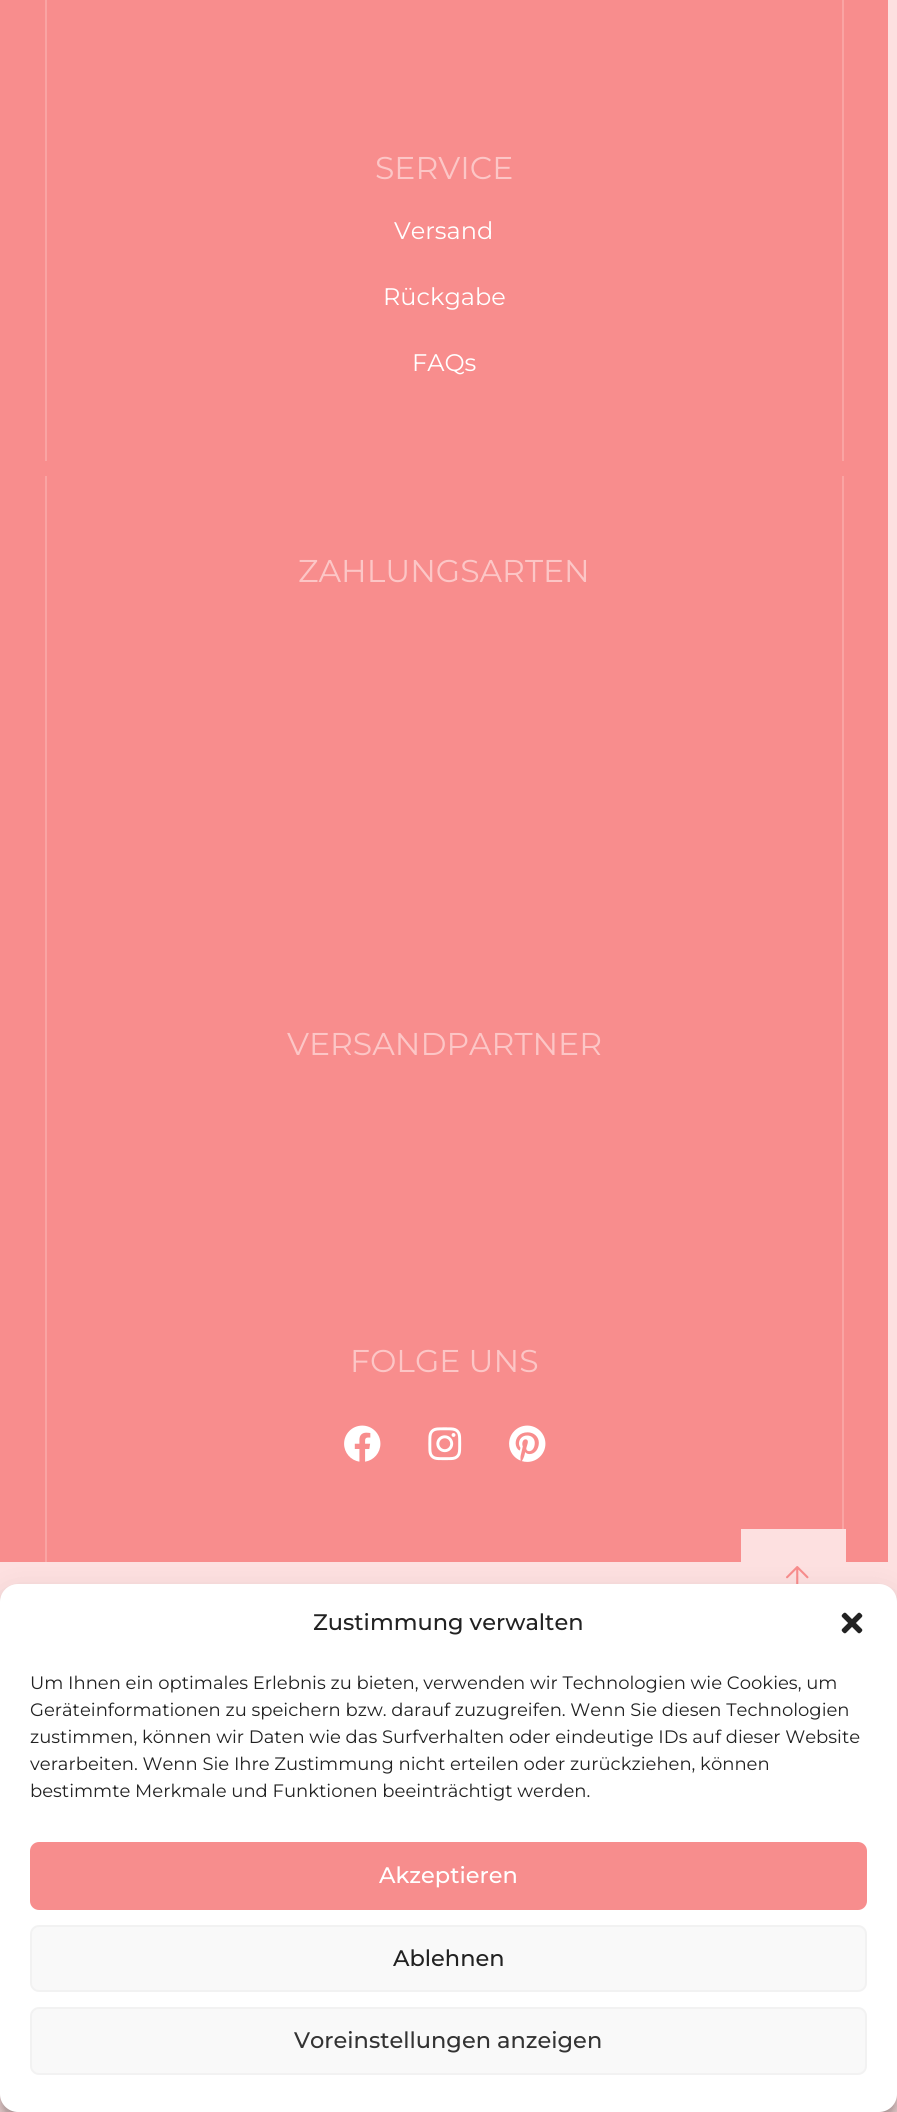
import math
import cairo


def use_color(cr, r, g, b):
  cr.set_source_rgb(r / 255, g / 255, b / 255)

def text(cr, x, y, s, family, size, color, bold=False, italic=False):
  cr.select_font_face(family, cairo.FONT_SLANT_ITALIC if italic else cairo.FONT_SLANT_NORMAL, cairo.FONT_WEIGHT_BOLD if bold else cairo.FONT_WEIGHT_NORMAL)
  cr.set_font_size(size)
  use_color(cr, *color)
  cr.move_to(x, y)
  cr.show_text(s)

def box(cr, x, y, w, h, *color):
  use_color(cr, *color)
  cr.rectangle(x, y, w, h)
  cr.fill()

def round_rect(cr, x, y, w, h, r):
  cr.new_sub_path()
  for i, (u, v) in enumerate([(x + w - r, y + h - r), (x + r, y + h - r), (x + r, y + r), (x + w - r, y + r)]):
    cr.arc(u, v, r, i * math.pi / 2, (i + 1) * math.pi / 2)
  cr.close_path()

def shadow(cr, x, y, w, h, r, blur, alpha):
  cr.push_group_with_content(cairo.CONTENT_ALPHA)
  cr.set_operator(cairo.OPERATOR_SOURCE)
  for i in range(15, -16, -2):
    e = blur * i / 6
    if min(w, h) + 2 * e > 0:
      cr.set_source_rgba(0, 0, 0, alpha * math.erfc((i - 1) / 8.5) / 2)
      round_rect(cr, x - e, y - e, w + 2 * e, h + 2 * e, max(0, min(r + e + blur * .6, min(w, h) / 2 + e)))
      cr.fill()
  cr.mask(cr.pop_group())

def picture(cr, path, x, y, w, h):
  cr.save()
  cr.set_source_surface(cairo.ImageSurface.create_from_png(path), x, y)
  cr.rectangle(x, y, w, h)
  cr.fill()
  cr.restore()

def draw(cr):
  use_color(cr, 253, 224, 224)
  cr.paint()
  box(cr, 0, 0, 888, 1562, 248, 141, 141)
  box(cr, 842, 0, 2, 461, 250, 164, 163)
  box(cr, 45, 0, 2, 461, 250, 164, 163)
  box(cr, 842, 476, 2, 1053, 250, 164, 163)
  box(cr, 45, 476, 2, 1086, 250, 164, 163)
  picture(cr, "img_01.png", 344, 1425, 37, 37)
  picture(cr, "img_02.png", 428, 1427, 34, 34)
  picture(cr, "img_03.png", 509, 1425, 37, 37)
  box(cr, 741, 1529, 105, 33, 253, 224, 224)
  picture(cr, "img_04.png", 786, 1566, 23, 18)
  use_color(cr, 0, 0, 0)
  shadow(cr, 0, 1593, 897, 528, 18, 4.5, 0.23)
  shadow(cr, 0, 1599, 897, 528, 18, 15, 0.19)
  use_color(cr, 255, 255, 255)
  round_rect(cr, 0, 1584, 897, 528, 18)
  cr.fill()
  picture(cr, "img_05.png", 841, 1612, 22, 22)
  use_color(cr, 247, 141, 141)
  round_rect(cr, 31, 1843, 835, 66, 8)
  cr.fill_preserve()
  cr.stroke()
  use_color(cr, 249, 249, 249)
  round_rect(cr, 31, 1926, 835, 65, 8)
  cr.fill_preserve()
  use_color(cr, 242, 242, 242)
  cr.stroke()
  use_color(cr, 249, 249, 249)
  round_rect(cr, 31, 2008, 835, 66, 8)
  cr.fill_preserve()
  use_color(cr, 242, 242, 242)
  cr.stroke()
  text(cr, 375, 179, "SERVICE", "Montserrat Thin", 31.5, (252, 198, 198))
  text(cr, 394, 239, "Versand", "Montserrat Thin", 24, (255, 255, 255))
  text(cr, 383, 305, "Rückgabe", "Montserrat Thin", 24, (255, 255, 255))
  text(cr, 412, 371, "FAQs", "Montserrat Thin", 24, (255, 255, 255))
  text(cr, 298, 582, "ZAHLUNGSARTEN", "Montserrat Thin", 31.5, (252, 198, 198))
  text(cr, 287, 1055, "VERSANDPARTNER", "Montserrat Thin", 31.5, (252, 198, 198))
  text(cr, 350, 1372, "FOLGE UNS", "Montserrat Thin", 31.5, (252, 198, 198))
  text(cr, 313, 1630, "Zustimmung verwalten", "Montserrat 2 Thin", 22.5, (34, 34, 34))
  text(cr, 30, 1689, "Um Ihnen ein optimales Erlebnis zu bieten, verwenden wir Technologien wie Cookies, um", "Montserrat Thin", 18, (34, 34, 34))
  text(cr, 30, 1716, "Geräteinformationen zu speichern bzw. darauf zuzugreifen. Wenn Sie diesen Technologien", "Montserrat Thin", 18, (34, 34, 34))
  text(cr, 30, 1743, "zustimmen, können wir Daten wie das Surfverhalten oder eindeutige IDs auf dieser Website", "Montserrat Thin", 18, (34, 34, 34))
  text(cr, 30, 1770, "verarbeiten. Wenn Sie Ihre Zustimmung nicht erteilen oder zurückziehen, können", "Montserrat Thin", 18, (34, 34, 34))
  text(cr, 30, 1797, "bestimmte Merkmale und Funktionen beeinträchtigt werden.", "Montserrat Thin", 18, (34, 34, 34))
  text(cr, 379, 1883, "Akzeptieren", "Montserrat 2 Thin", 22.5, (255, 255, 255))
  text(cr, 393, 1966, "Ablehnen", "Montserrat 2 Thin", 22.5, (34, 34, 34))
  text(cr, 294, 2048, "Voreinstellungen anzeigen", "Montserrat 2 Thin", 22.5, (51, 51, 51))


surface = cairo.ImageSurface(cairo.FORMAT_RGB24, 897, 2112)
cr = cairo.Context(surface)
options = cairo.FontOptions()
options.set_hint_metrics(cairo.HINT_METRICS_OFF)
options.set_hint_style(cairo.HINT_STYLE_NONE)
cr.set_font_options(options)
cr.set_miter_limit(4)
draw(cr)
surface.write_to_png("out.png")
